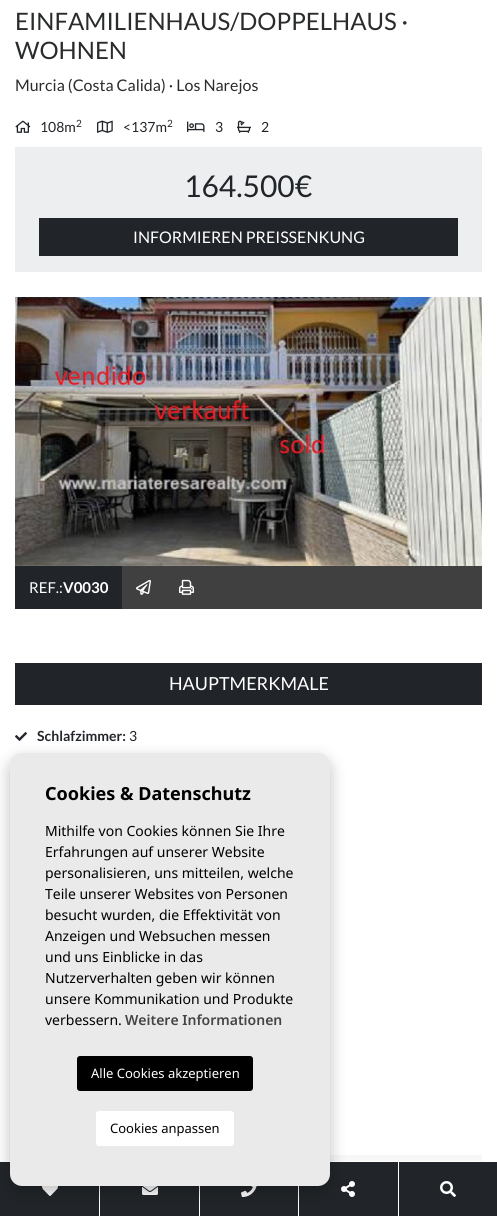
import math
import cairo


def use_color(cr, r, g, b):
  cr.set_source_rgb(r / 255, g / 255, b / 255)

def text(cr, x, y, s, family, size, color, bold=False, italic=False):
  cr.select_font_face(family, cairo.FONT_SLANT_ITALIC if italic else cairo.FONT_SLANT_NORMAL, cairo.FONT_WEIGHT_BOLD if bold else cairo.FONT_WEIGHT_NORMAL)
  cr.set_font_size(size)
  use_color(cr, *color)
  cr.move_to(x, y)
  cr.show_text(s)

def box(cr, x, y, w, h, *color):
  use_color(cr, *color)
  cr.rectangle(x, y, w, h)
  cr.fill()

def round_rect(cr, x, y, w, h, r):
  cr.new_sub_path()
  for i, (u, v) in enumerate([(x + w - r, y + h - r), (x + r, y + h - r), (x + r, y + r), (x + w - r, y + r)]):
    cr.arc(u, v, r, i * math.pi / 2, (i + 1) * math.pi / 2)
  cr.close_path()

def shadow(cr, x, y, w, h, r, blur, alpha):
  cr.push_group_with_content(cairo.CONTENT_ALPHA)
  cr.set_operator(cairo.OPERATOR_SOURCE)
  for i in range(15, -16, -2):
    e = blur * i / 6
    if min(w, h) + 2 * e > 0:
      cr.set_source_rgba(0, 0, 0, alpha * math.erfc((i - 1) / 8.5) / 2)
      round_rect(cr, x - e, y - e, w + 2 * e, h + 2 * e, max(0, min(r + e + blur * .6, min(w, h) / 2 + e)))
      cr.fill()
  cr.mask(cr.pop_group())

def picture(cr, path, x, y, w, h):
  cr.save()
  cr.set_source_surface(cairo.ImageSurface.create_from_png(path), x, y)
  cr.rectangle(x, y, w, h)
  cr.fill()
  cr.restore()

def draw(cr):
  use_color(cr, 255, 255, 255)
  cr.paint()
  picture(cr, "img_01.png", 15, 120, 16, 13)
  picture(cr, "img_02.png", 97, 120, 16, 13)
  picture(cr, "img_03.png", 187, 121, 18, 11)
  picture(cr, "img_04.png", 237, 120, 14, 13)
  box(cr, 15, 147, 467, 125, 236, 238, 239)
  box(cr, 39, 218, 419, 38, 33, 37, 41)
  picture(cr, "img_05.png", 15, 297, 467, 269)
  box(cr, 122, 566, 360, 43, 64, 64, 65)
  box(cr, 15, 566, 107, 43, 33, 37, 41)
  picture(cr, "img_06.png", 136, 579, 15, 16)
  picture(cr, "img_07.png", 179, 579, 15, 16)
  box(cr, 15, 663, 467, 42, 33, 37, 41)
  picture(cr, "img_08.png", 15, 732, 12, 9)
  box(cr, 330, 1155, 152, 6, 247, 247, 247)
  box(cr, 0, 1162, 497, 54, 33, 37, 41)
  picture(cr, "img_09.png", 42, 1186, 16, 10)
  box(cr, 99, 1186, 1, 30, 255, 255, 255)
  picture(cr, "img_10.png", 142, 1186, 16, 9)
  box(cr, 199, 1186, 1, 30, 255, 255, 255)
  picture(cr, "img_11.png", 241, 1186, 16, 11)
  box(cr, 298, 1186, 1, 30, 255, 255, 255)
  picture(cr, "img_12.png", 341, 1181, 14, 16)
  use_color(cr, 0, 0, 0)
  shadow(cr, 10, 759, 320, 433, 12, 8, 0.25)
  use_color(cr, 234, 234, 234)
  round_rect(cr, 10, 753, 320, 433, 12)
  cr.fill()
  use_color(cr, 0, 0, 0)
  round_rect(cr, 77, 1056, 176, 35, 3)
  cr.fill()
  use_color(cr, 255, 255, 255)
  round_rect(cr, 96, 1111, 138, 35, 3)
  cr.fill()
  box(cr, 398, 1162, 1, 54, 255, 255, 255)
  picture(cr, "img_13.png", 440, 1181, 16, 16)
  text(cr, 15, 30, "EINFAMILIENHAUS/DOPPELHAUS ·", "Lato", 24, (41, 43, 44))
  text(cr, 15, 59, "WOHNEN", "Lato", 24, (41, 43, 44))
  text(cr, 15, 91, "Murcia (Costa Calida) · Los Narejos", "Lato", 16, (41, 43, 44))
  text(cr, 40, 132, "108m", "Lato", 14, (33, 37, 41))
  text(cr, 76, 127, "2", "Lato", 10, (33, 37, 41))
  text(cr, 123, 132, "<137m", "Lato", 14, (33, 37, 41))
  text(cr, 167, 127, "2", "Lato", 10, (33, 37, 41))
  text(cr, 215, 132, "3", "Lato", 14, (33, 37, 41))
  text(cr, 261, 132, "2", "Lato", 14, (33, 37, 41))
  text(cr, 184, 197, "164.500€", "Lato", 30, (33, 37, 41))
  text(cr, 133, 243, "INFORMIEREN PREISSENKUNG", "Lato", 16, (255, 255, 255))
  text(cr, 29, 593, "REF.:", "Lato", 15, (255, 255, 255))
  text(cr, 63, 593, "V0030", "Lato", 15, (255, 255, 255), bold=True)
  text(cr, 169, 690, "HAUPTMERKMALE", "Lato", 18, (255, 255, 255))
  text(cr, 37, 741, "Schlafzimmer:", "Lato", 14, (33, 37, 41), bold=True)
  text(cr, 129, 741, "3", "Lato", 14, (33, 37, 41))
  text(cr, 45, 800, "Cookies & Datenschutz", "Noto Sans", 18, (0, 0, 0), bold=True)
  text(cr, 45, 836, "Mithilfe von Cookies können Sie Ihre", "Noto Sans", 14, (0, 0, 0))
  text(cr, 45, 857, "Erfahrungen auf unserer Website", "Noto Sans", 14, (0, 0, 0))
  text(cr, 45, 878, "personalisieren, uns mitteilen, welche", "Noto Sans", 14, (0, 0, 0))
  text(cr, 45, 899, "Teile unserer Websites von Personen", "Noto Sans", 14, (0, 0, 0))
  text(cr, 45, 920, "besucht wurden, die Effektivität von", "Noto Sans", 14, (0, 0, 0))
  text(cr, 45, 941, "Anzeigen und Websuchen messen", "Noto Sans", 14, (0, 0, 0))
  text(cr, 45, 962, "und uns Einblicke in das", "Noto Sans", 14, (0, 0, 0))
  text(cr, 45, 983, "Nutzerverhalten geben wir können", "Noto Sans", 14, (0, 0, 0))
  text(cr, 45, 1004, "unsere Kommunikation und Produkte", "Noto Sans", 14, (0, 0, 0))
  text(cr, 45, 1025, "verbessern.", "Noto Sans", 14, (0, 0, 0))
  text(cr, 125, 1025, "Weitere Informationen", "Noto Sans SemiBold", 14, (68, 68, 68))
  text(cr, 91, 1078, "Alle Cookies akzeptieren", "Noto Sans", 13, (255, 255, 255))
  text(cr, 110, 1133, "Cookies anpassen", "Noto Sans", 13, (0, 0, 0))


surface = cairo.ImageSurface(cairo.FORMAT_RGB24, 497, 1216)
cr = cairo.Context(surface)
options = cairo.FontOptions()
options.set_hint_metrics(cairo.HINT_METRICS_OFF)
options.set_hint_style(cairo.HINT_STYLE_NONE)
cr.set_font_options(options)
cr.set_miter_limit(4)
draw(cr)
surface.write_to_png("out.png")
